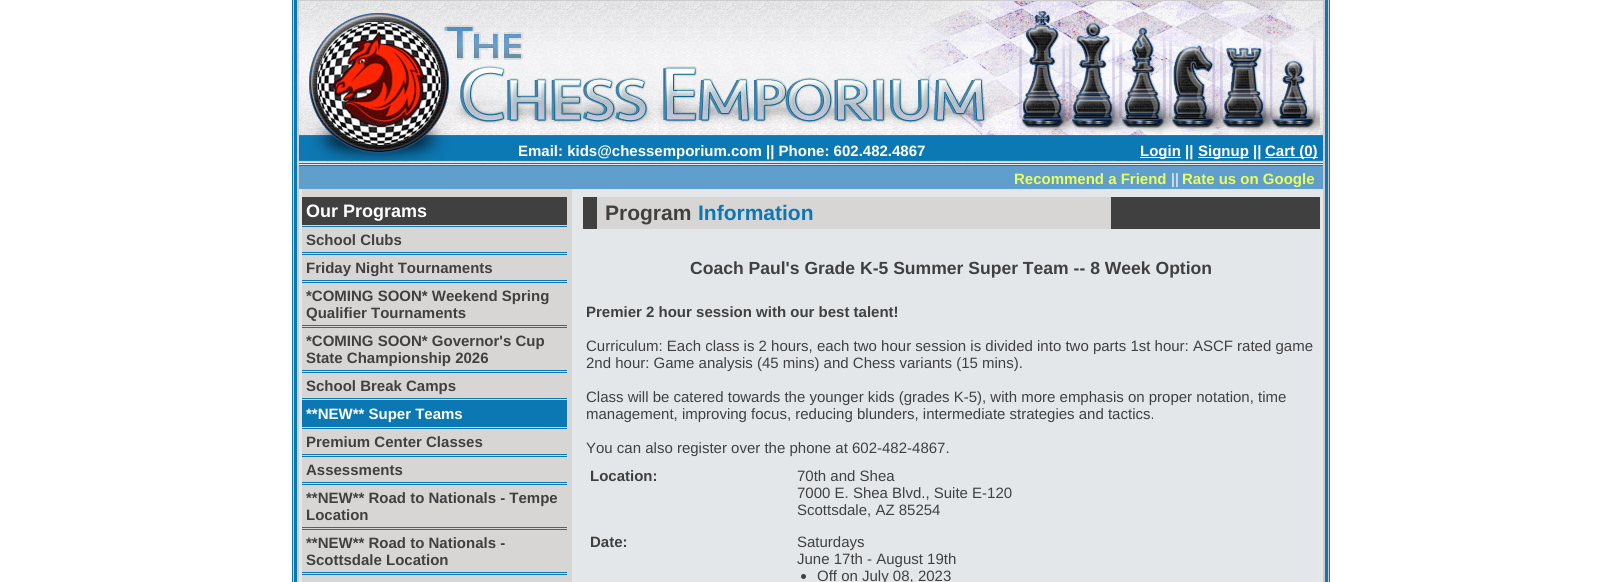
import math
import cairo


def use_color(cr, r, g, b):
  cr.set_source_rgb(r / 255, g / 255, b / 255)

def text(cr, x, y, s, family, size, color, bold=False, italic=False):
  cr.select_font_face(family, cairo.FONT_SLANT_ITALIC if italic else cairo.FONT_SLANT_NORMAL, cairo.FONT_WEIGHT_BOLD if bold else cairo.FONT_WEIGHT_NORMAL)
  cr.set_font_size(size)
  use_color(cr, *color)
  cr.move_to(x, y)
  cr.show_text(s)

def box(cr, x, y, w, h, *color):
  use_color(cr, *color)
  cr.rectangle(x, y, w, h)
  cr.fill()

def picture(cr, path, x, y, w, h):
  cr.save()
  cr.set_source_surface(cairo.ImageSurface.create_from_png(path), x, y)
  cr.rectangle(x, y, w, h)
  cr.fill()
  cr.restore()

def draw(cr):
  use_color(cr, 255, 255, 255)
  cr.paint()
  picture(cr, "img_01.png", 292, 0, 1038, 166)
  picture(cr, "img_02.png", 1017, 10, 303, 124)
  box(cr, 1140, 157, 41, 1, 255, 255, 255)
  box(cr, 1198, 157, 51, 1, 255, 255, 255)
  box(cr, 1265, 157, 53, 1, 255, 255, 255)
  picture(cr, "img_03.png", 292, 166, 1038, 416)
  box(cr, 299, 166, 1024, 23, 96, 158, 205)
  box(cr, 302, 189, 270, 393, 216, 213, 213)
  box(cr, 302, 197, 265, 28, 65, 64, 65)
  box(cr, 302, 226, 265, 1, 12, 120, 179)
  box(cr, 302, 252, 265, 1, 12, 120, 179)
  box(cr, 302, 254, 265, 1, 12, 120, 179)
  box(cr, 302, 280, 265, 1, 12, 120, 179)
  box(cr, 302, 282, 265, 1, 12, 120, 179)
  box(cr, 302, 325, 265, 1, 12, 120, 179)
  box(cr, 302, 327, 265, 1, 12, 120, 179)
  box(cr, 302, 370, 265, 1, 12, 120, 179)
  box(cr, 302, 372, 265, 1, 12, 120, 179)
  box(cr, 302, 398, 265, 1, 12, 120, 179)
  box(cr, 302, 400, 265, 27, 12, 120, 179)
  box(cr, 302, 428, 265, 1, 12, 120, 179)
  box(cr, 302, 454, 265, 1, 12, 120, 179)
  box(cr, 302, 456, 265, 1, 12, 120, 179)
  box(cr, 302, 482, 265, 1, 12, 120, 179)
  box(cr, 302, 484, 265, 1, 12, 120, 179)
  box(cr, 302, 527, 265, 1, 12, 120, 179)
  box(cr, 302, 529, 265, 1, 12, 120, 179)
  box(cr, 302, 572, 265, 1, 12, 120, 179)
  box(cr, 302, 574, 265, 1, 12, 120, 179)
  box(cr, 583, 197, 737, 32, 65, 64, 65)
  box(cr, 597, 197, 514, 32, 216, 213, 213)
  use_color(cr, 65, 64, 65)
  cr.arc(803.5, 576.5, 2.5, 0, 2 * math.pi)
  cr.fill()
  text(cr, 518, 156, "Email: kids@chessemporium.com || Phone: 602.482.4867", "Liberation Sans", 15, (255, 255, 255), bold=True)
  text(cr, 1140, 156, "Login ||", "Liberation Sans", 15, (255, 255, 255), bold=True)
  text(cr, 1198, 156, "Signup ||", "Liberation Sans", 15, (255, 255, 255), bold=True)
  text(cr, 1265, 156, "Cart (0)", "Liberation Sans", 15, (255, 255, 255), bold=True)
  text(cr, 1014, 184, "Recommend a Friend", "Liberation Sans", 15, (235, 255, 86), bold=True)
  text(cr, 1171, 184, "||", "Liberation Sans", 15, (255, 255, 255))
  text(cr, 1182, 184, "Rate us on Google", "Liberation Sans", 15, (235, 255, 86), bold=True)
  text(cr, 306, 217, "Our Programs", "Liberation Sans", 18, (255, 255, 255), bold=True)
  text(cr, 306, 245, "School Clubs", "Liberation Sans", 15, (65, 64, 65), bold=True)
  text(cr, 306, 273, "Friday Night Tournaments", "Liberation Sans", 15, (65, 64, 65), bold=True)
  text(cr, 306, 301, "*COMING SOON* Weekend Spring", "Liberation Sans", 15, (65, 64, 65), bold=True)
  text(cr, 306, 318, "Qualifier Tournaments", "Liberation Sans", 15, (65, 64, 65), bold=True)
  text(cr, 306, 346, "*COMING SOON* Governor's Cup", "Liberation Sans", 15, (65, 64, 65), bold=True)
  text(cr, 306, 363, "State Championship 2026", "Liberation Sans", 15, (65, 64, 65), bold=True)
  text(cr, 306, 391, "School Break Camps", "Liberation Sans", 15, (65, 64, 65), bold=True)
  text(cr, 306, 419, "**NEW** Super Teams", "Liberation Sans", 15, (255, 255, 255), bold=True)
  text(cr, 306, 447, "Premium Center Classes", "Liberation Sans", 15, (65, 64, 65), bold=True)
  text(cr, 306, 475, "Assessments", "Liberation Sans", 15, (65, 64, 65), bold=True)
  text(cr, 306, 503, "**NEW** Road to Nationals - Tempe", "Liberation Sans", 15, (65, 64, 65), bold=True)
  text(cr, 306, 520, "Location", "Liberation Sans", 15, (65, 64, 65), bold=True)
  text(cr, 306, 548, "**NEW** Road to Nationals -", "Liberation Sans", 15, (65, 64, 65), bold=True)
  text(cr, 306, 565, "Scottsdale Location", "Liberation Sans", 15, (65, 64, 65), bold=True)
  text(cr, 605, 220, "Program", "Liberation Sans", 21, (65, 64, 65), bold=True)
  text(cr, 698, 220, "Information", "Liberation Sans", 21, (12, 120, 179), bold=True)
  text(cr, 690, 274, "Coach Paul's Grade K-5 Summer Super Team -- 8 Week Option", "Liberation Sans", 17.55, (65, 64, 65), bold=True)
  text(cr, 586, 317, "Premier 2 hour session with our best talent!", "Liberation Sans", 15, (65, 64, 65), bold=True)
  text(cr, 586, 351, "Curriculum: Each class is 2 hours, each two hour session is divided into two parts 1st hour: ASCF rated game", "Liberation Sans", 15, (65, 64, 65))
  text(cr, 586, 368, "2nd hour: Game analysis (45 mins) and Chess variants (15 mins).", "Liberation Sans", 15, (65, 64, 65))
  text(cr, 586, 402, "Class will be catered towards the younger kids (grades K-5), with more emphasis on proper notation, time", "Liberation Sans", 15, (65, 64, 65))
  text(cr, 586, 419, "management, improving focus, reducing blunders, intermediate strategies and tactics.", "Liberation Sans", 15, (65, 64, 65))
  text(cr, 586, 453, "You can also register over the phone at 602-482-4867.", "Liberation Sans", 15, (65, 64, 65))
  text(cr, 590, 481, "Location:", "Liberation Sans", 15, (65, 64, 65), bold=True)
  text(cr, 797, 481, "70th and Shea", "Liberation Sans", 15, (65, 64, 65))
  text(cr, 797, 498, "7000 E. Shea Blvd., Suite E-120", "Liberation Sans", 15, (65, 64, 65))
  text(cr, 797, 515, "Scottsdale, AZ 85254", "Liberation Sans", 15, (65, 64, 65))
  text(cr, 590, 547, "Date:", "Liberation Sans", 15, (65, 64, 65), bold=True)
  text(cr, 797, 547, "Saturdays", "Liberation Sans", 15, (65, 64, 65))
  text(cr, 797, 564, "June 17th - August 19th", "Liberation Sans", 15, (65, 64, 65))
  text(cr, 817, 581, "Off on July 08, 2023", "Liberation Sans", 15, (65, 64, 65))


surface = cairo.ImageSurface(cairo.FORMAT_RGB24, 1622, 582)
cr = cairo.Context(surface)
options = cairo.FontOptions()
options.set_hint_metrics(cairo.HINT_METRICS_OFF)
options.set_hint_style(cairo.HINT_STYLE_NONE)
cr.set_font_options(options)
cr.set_miter_limit(4)
draw(cr)
surface.write_to_png("out.png")
